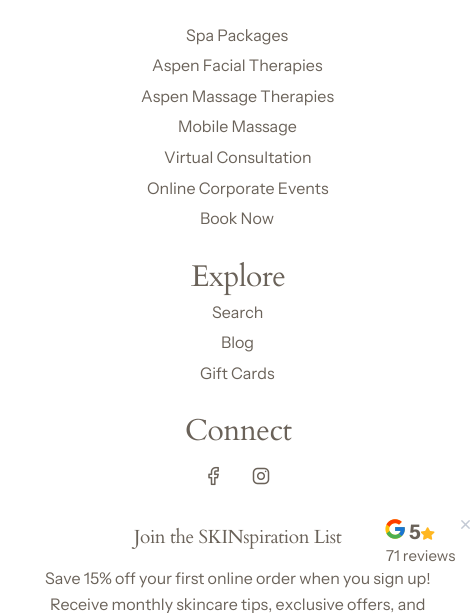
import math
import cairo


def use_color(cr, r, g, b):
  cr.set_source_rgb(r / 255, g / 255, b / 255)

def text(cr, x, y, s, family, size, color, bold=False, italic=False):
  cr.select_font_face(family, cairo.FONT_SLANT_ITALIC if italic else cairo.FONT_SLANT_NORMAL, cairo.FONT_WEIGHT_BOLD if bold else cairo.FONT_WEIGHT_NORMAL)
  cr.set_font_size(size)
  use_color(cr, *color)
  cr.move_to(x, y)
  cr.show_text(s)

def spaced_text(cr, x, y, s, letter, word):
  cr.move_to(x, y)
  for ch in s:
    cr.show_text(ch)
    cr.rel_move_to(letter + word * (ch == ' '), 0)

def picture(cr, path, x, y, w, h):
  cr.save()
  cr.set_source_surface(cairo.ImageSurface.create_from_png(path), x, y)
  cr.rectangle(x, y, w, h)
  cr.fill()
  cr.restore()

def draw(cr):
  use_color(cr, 255, 255, 255)
  cr.paint()
  picture(cr, "img_01.png", 208, 466, 11, 20)
  picture(cr, "img_02.png", 252, 467, 18, 18)
  text(cr, 186, 41, "Spa Packages", "Instrument Sans", 16, (106, 98, 89))
  text(cr, 152, 71, "Aspen Facial Therapies", "Instrument Sans", 16, (106, 98, 89))
  text(cr, 141, 102, "Aspen Massage Therapies", "Instrument Sans", 16, (106, 98, 89))
  text(cr, 178, 132, "Mobile Massage", "Instrument Sans", 16, (106, 98, 89))
  text(cr, 164, 163, "Virtual Consultation", "Instrument Sans", 16, (106, 98, 89))
  text(cr, 147, 194, "Online Corporate Events", "Instrument Sans", 16, (106, 98, 89))
  text(cr, 200, 224, "Book Now", "Instrument Sans", 16, (106, 98, 89))
  cr.select_font_face("Cardo")
  cr.set_font_size(30)
  spaced_text(cr, 191, 286, "Explore", -0.5, 0)
  text(cr, 212, 318, "Search", "Instrument Sans", 16, (106, 98, 89))
  text(cr, 221, 348, "Blog", "Instrument Sans", 16, (106, 98, 89))
  text(cr, 200, 379, "Gift Cards", "Instrument Sans", 16, (106, 98, 89))
  cr.select_font_face("Cardo")
  cr.set_font_size(30)
  spaced_text(cr, 185, 440, "Connect", -0.5, 0)
  cr.set_font_size(19)
  spaced_text(cr, 134, 543, "Join the SKINspiration List", -0.4, 0)
  text(cr, 45, 584, "Save 15% off your first online order when you sign up!", "Instrument Sans", 16, (106, 98, 89))
  text(cr, 50, 610, "Receive monthly skincare tips, exclusive offers, and", "Instrument Sans", 16, (106, 98, 89))
  use_color(cr, 255, 255, 255)
  cr.new_path()
  cr.move_to(376, 515)
  cr.line_to(475, 515)
  cr.line_to(475, 573)
  cr.line_to(376, 573)
  cr.curve_to(370.5, 573, 366, 568.5, 366, 563)
  cr.line_to(366, 525)
  cr.curve_to(366, 519.5, 370.5, 515, 376, 515)
  cr.close_path()
  cr.fill()
  picture(cr, "img_03.png", 385, 519, 20, 20)
  text(cr, 409, 539, "5", "Instrument Sans", 20, (106, 98, 89), bold=True)
  picture(cr, "img_04.png", 421, 527, 14, 13)
  picture(cr, "img_05.png", 461, 520, 9, 9)
  text(cr, 386, 561, "71 reviews", "Instrument Sans", 15, (106, 98, 89))


surface = cairo.ImageSurface(cairo.FORMAT_RGB24, 475, 613)
cr = cairo.Context(surface)
options = cairo.FontOptions()
options.set_hint_metrics(cairo.HINT_METRICS_OFF)
options.set_hint_style(cairo.HINT_STYLE_NONE)
cr.set_font_options(options)
cr.set_miter_limit(4)
draw(cr)
surface.write_to_png("out.png")
